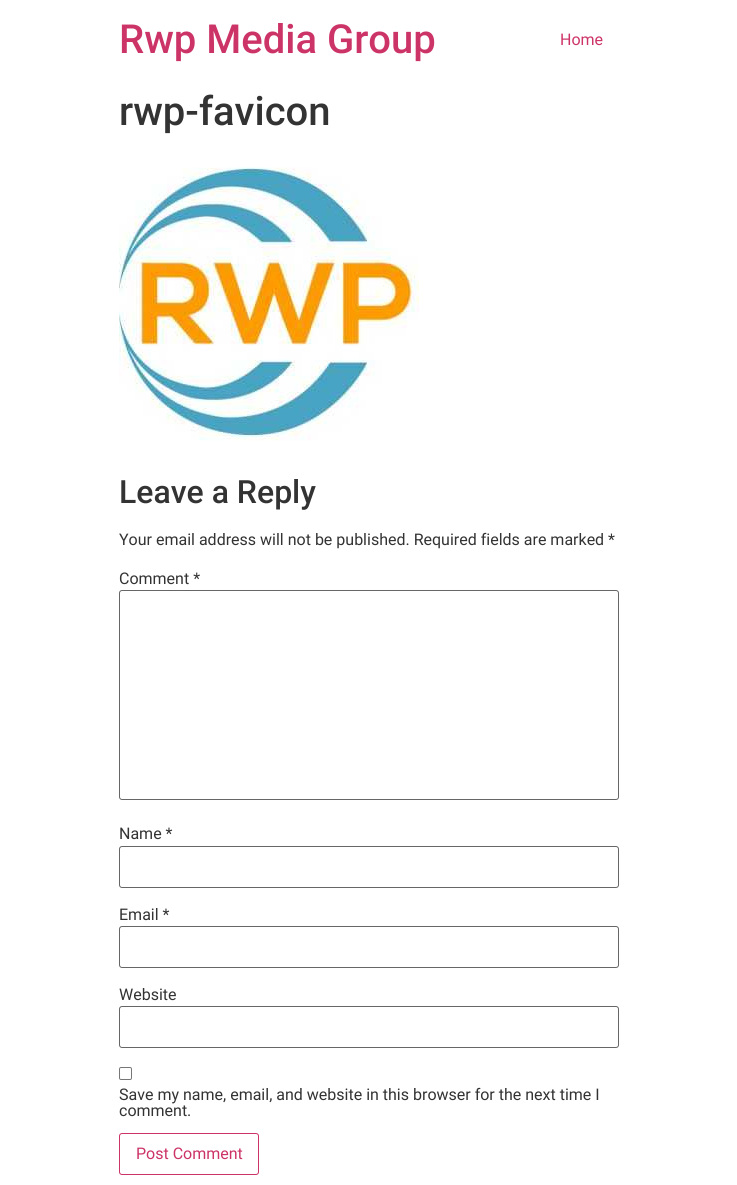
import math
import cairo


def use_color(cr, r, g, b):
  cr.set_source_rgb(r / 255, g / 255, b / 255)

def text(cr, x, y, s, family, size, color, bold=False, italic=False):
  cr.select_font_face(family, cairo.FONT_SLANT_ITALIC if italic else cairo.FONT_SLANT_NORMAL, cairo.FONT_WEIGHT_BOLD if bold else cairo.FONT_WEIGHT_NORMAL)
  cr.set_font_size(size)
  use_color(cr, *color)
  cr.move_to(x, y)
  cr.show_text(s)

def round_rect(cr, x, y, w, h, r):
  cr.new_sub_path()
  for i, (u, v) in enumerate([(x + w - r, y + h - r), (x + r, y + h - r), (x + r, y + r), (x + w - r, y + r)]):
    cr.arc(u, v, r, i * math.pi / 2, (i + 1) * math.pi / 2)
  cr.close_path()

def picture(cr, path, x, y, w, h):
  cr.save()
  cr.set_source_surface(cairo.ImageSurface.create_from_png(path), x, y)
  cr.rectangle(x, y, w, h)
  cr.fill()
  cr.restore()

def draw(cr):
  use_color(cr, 255, 255, 255)
  cr.paint()
  picture(cr, "img_01.png", 119, 167, 300, 274)
  round_rect(cr, 119.5, 590.5, 499, 209, 2.5)
  use_color(cr, 102, 102, 102)
  cr.set_line_width(1)
  cr.stroke()
  round_rect(cr, 119.5, 846.5, 499, 41, 2.5)
  cr.stroke()
  round_rect(cr, 119.5, 926.5, 499, 41, 2.5)
  cr.stroke()
  round_rect(cr, 119.5, 1006.5, 499, 41, 2.5)
  cr.stroke()
  round_rect(cr, 119.5, 1067.5, 12, 12, 1.5)
  use_color(cr, 118, 118, 118)
  cr.stroke()
  round_rect(cr, 119.5, 1133.5, 139, 41, 2.5)
  use_color(cr, 204, 51, 102)
  cr.stroke()
  text(cr, 119, 53, "Rwp Media Group", "Roboto Medium", 40, (204, 51, 102))
  text(cr, 560, 45, "Home", "Roboto", 16, (204, 51, 102))
  text(cr, 119, 125, "rwp-favicon", "Roboto Medium", 40, (51, 51, 51))
  text(cr, 119, 503, "Leave a Reply", "Roboto Medium", 32, (51, 51, 51))
  text(cr, 119, 545, "Your email address will not be published. Required fields are marked *", "Roboto", 16, (51, 51, 51))
  text(cr, 119, 584, "Comment *", "Roboto", 16, (51, 51, 51))
  text(cr, 119, 839, "Name *", "Roboto", 16, (51, 51, 51))
  text(cr, 119, 920, "Email *", "Roboto", 16, (51, 51, 51))
  text(cr, 119, 1000, "Website", "Roboto", 16, (51, 51, 51))
  text(cr, 119, 1100, "Save my name, email, and website in this browser for the next time I", "Roboto", 16, (51, 51, 51))
  text(cr, 119, 1116, "comment.", "Roboto", 16, (51, 51, 51))
  text(cr, 136, 1159, "Post Comment", "Roboto", 16, (204, 51, 102))


surface = cairo.ImageSurface(cairo.FORMAT_RGB24, 737, 1185)
cr = cairo.Context(surface)
options = cairo.FontOptions()
options.set_hint_metrics(cairo.HINT_METRICS_OFF)
options.set_hint_style(cairo.HINT_STYLE_NONE)
cr.set_font_options(options)
cr.set_miter_limit(4)
draw(cr)
surface.write_to_png("out.png")
